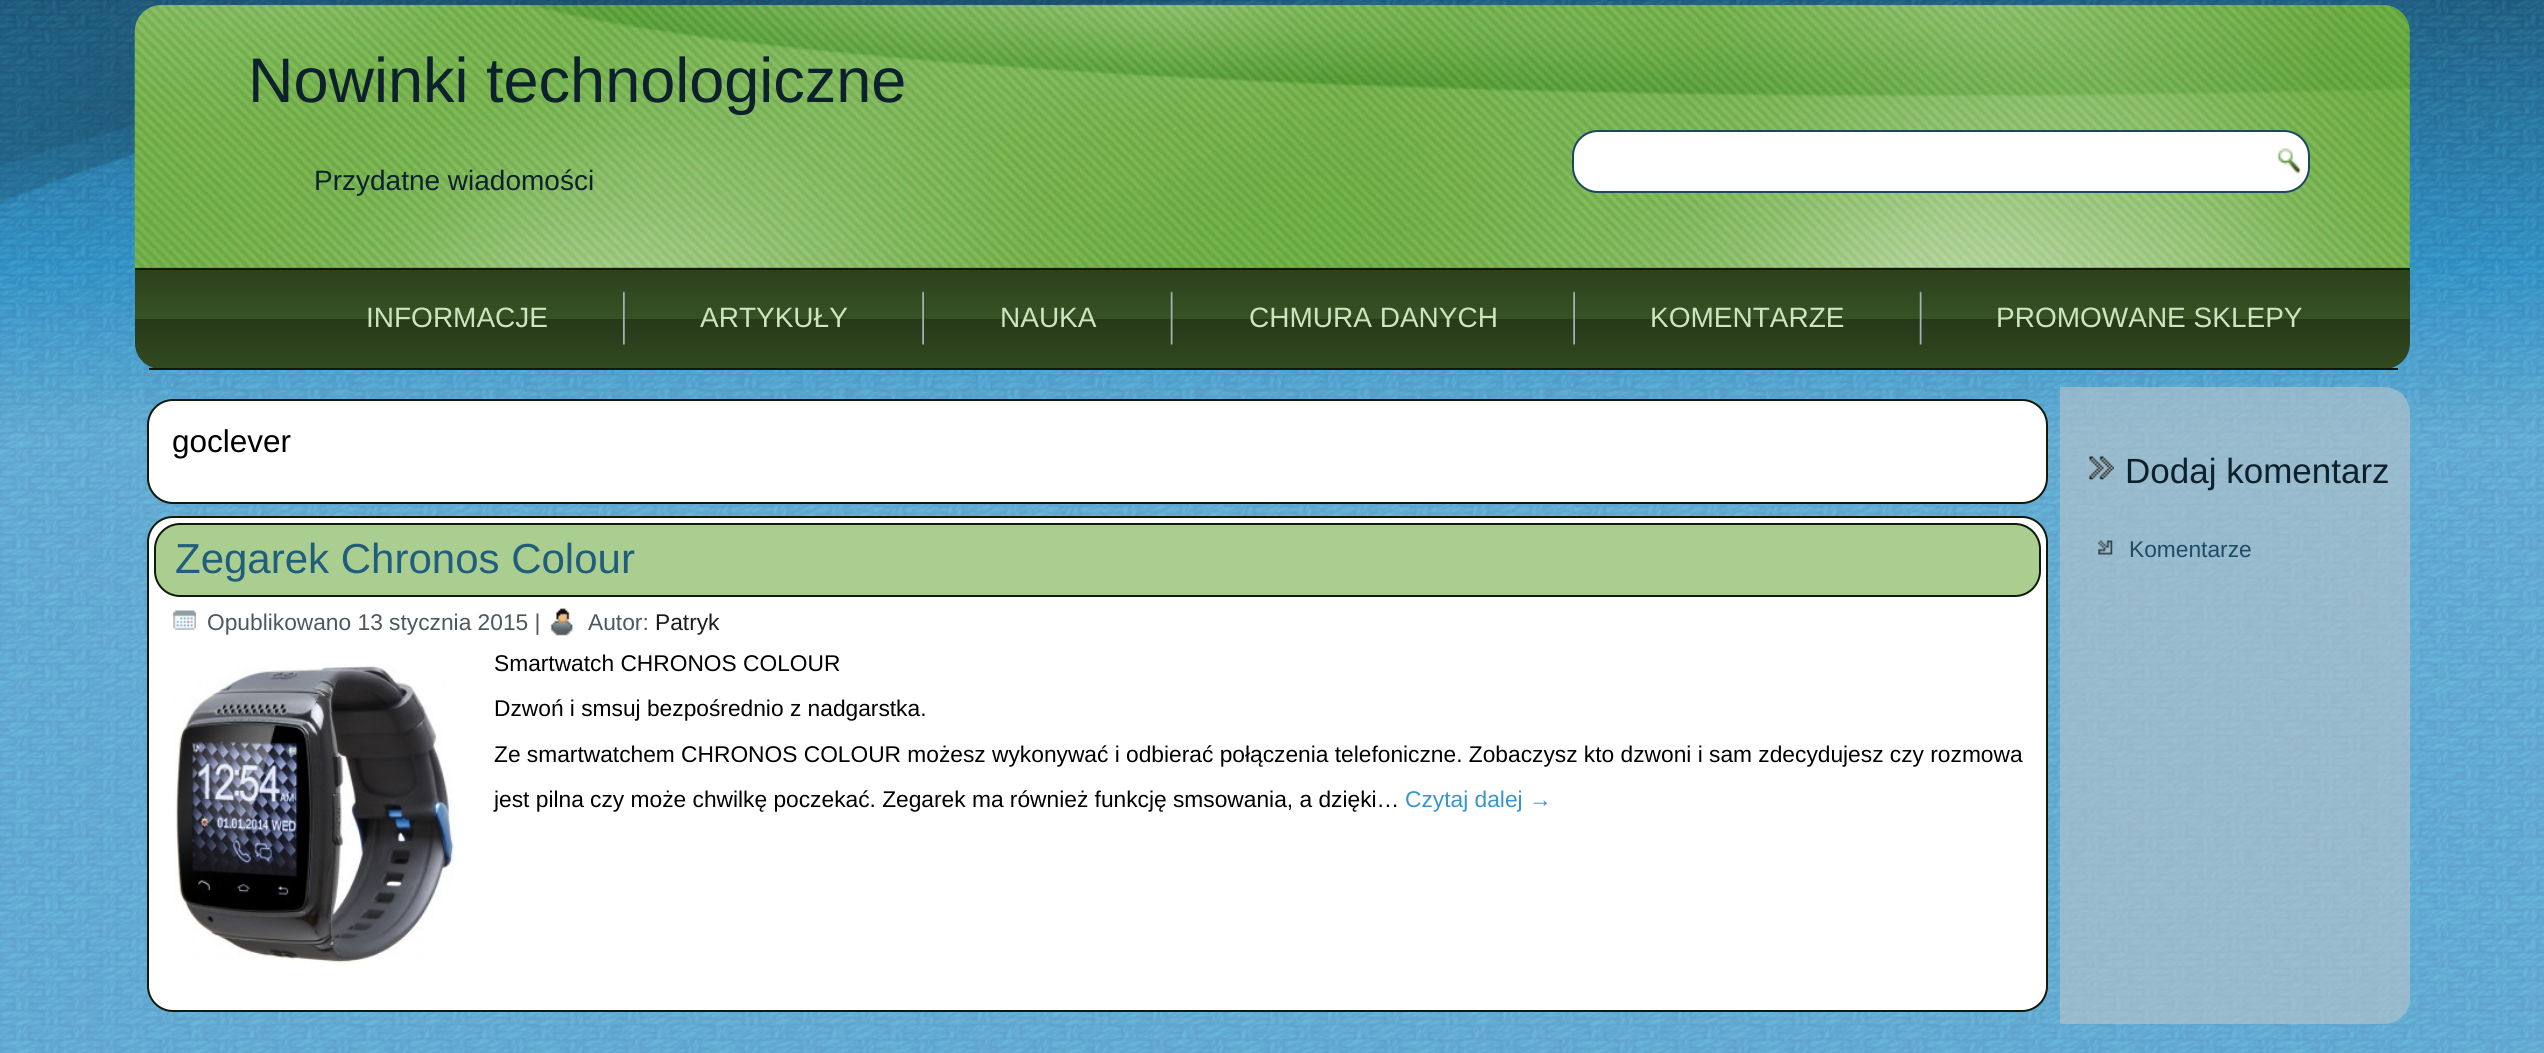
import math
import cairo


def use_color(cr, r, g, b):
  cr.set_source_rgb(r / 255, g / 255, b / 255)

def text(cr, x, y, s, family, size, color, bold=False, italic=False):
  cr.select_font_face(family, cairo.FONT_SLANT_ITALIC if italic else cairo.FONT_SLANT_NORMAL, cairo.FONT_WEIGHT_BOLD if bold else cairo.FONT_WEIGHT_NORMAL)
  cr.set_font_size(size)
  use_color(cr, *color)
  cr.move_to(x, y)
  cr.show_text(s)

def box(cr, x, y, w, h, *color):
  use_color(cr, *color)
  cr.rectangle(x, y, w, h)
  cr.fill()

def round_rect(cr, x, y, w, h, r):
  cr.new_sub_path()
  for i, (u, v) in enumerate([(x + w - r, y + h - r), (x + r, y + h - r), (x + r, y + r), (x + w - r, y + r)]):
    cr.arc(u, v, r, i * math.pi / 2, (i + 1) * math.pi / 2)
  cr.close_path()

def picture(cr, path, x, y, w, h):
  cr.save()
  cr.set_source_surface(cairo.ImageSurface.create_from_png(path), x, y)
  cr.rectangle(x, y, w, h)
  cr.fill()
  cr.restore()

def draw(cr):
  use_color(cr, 255, 255, 255)
  cr.paint()
  picture(cr, "img_01.png", 0, 0, 2544, 1053)
  picture(cr, "img_02.png", 134, 5, 2276, 263)
  use_color(cr, 255, 255, 255)
  round_rect(cr, 1573, 131, 736, 61, 25)
  cr.fill_preserve()
  use_color(cr, 26, 72, 97)
  cr.stroke()
  picture(cr, "img_03.png", 2276, 148, 26, 26)
  gradient = cairo.LinearGradient(1272, 268, 1272, 369)
  gradient.add_color_stop_rgba(0, 0.169, 0.251, 0.11, 1)
  gradient.add_color_stop_rgba(0.5, 0.216, 0.322, 0.141, 1)
  gradient.add_color_stop_rgba(0.5, 0.149, 0.224, 0.098, 1)
  gradient.add_color_stop_rgba(1, 0.196, 0.29, 0.129, 1)
  cr.set_source(gradient)
  cr.new_path()
  cr.move_to(135, 268)
  cr.line_to(2410, 268)
  cr.line_to(2410, 343)
  cr.curve_to(2410, 357.5, 2398.5, 369, 2384, 369)
  cr.line_to(161, 369)
  cr.curve_to(146.5, 369, 135, 357.5, 135, 343)
  cr.close_path()
  cr.fill()
  box(cr, 135, 268, 2275, 2, 17, 25, 11)
  box(cr, 149, 368, 2249, 2, 17, 25, 11)
  picture(cr, "img_04.png", 623, 291, 2, 54)
  picture(cr, "img_05.png", 922, 291, 2, 54)
  picture(cr, "img_06.png", 1170, 291, 3, 54)
  picture(cr, "img_05.png", 1573, 291, 2, 54)
  picture(cr, "img_06.png", 1919, 291, 3, 54)
  use_color(cr, 255, 255, 255)
  round_rect(cr, 148, 400, 1899, 103, 25)
  cr.fill_preserve()
  use_color(cr, 17, 25, 11)
  cr.stroke()
  use_color(cr, 255, 255, 255)
  round_rect(cr, 148, 517, 1899, 494, 25)
  cr.fill_preserve()
  use_color(cr, 17, 25, 11)
  cr.stroke()
  use_color(cr, 170, 206, 143)
  round_rect(cr, 155, 524, 1885, 72, 25)
  cr.fill_preserve()
  use_color(cr, 17, 25, 11)
  cr.stroke()
  picture(cr, "img_07.png", 173, 610, 23, 20)
  picture(cr, "img_08.png", 550, 608, 23, 28)
  picture(cr, "img_09.png", 174, 665, 280, 299)
  cr.set_source_rgba(0.733, 0.773, 0.788, 0.6)
  cr.new_path()
  cr.move_to(2060, 387)
  cr.line_to(2384, 387)
  cr.curve_to(2398.5, 387, 2410, 398.5, 2410, 413)
  cr.line_to(2410, 998)
  cr.curve_to(2410, 1012.5, 2398.5, 1024, 2384, 1024)
  cr.line_to(2060, 1024)
  cr.close_path()
  cr.fill()
  picture(cr, "img_10.png", 2089, 456, 25, 24)
  picture(cr, "img_11.png", 2098, 540, 15, 15)
  text(cr, 248, 102, "Nowinki technologiczne", "Liberation Sans", 63, (12, 33, 44))
  text(cr, 314, 190, "Przydatne wiadomości", "Liberation Sans", 28, (12, 33, 44))
  text(cr, 366, 327, "INFORMACJE", "Liberation Sans", 28, (206, 227, 191))
  text(cr, 700, 327, "ARTYKUŁY", "Liberation Sans", 28, (206, 227, 191))
  text(cr, 1000, 327, "NAUKA", "Liberation Sans", 28, (206, 227, 191))
  text(cr, 1249, 327, "CHMURA DANYCH", "Liberation Sans", 28, (206, 227, 191))
  text(cr, 1650, 327, "KOMENTARZE", "Liberation Sans", 28, (206, 227, 191))
  text(cr, 1996, 327, "PROMOWANE SKLEPY", "Liberation Sans", 28, (206, 227, 191))
  text(cr, 172, 452, "goclever", "Liberation Sans", 31.5, (0, 0, 0))
  text(cr, 175, 573, "Zegarek Chronos Colour", "Liberation Sans", 42, (33, 93, 125))
  text(cr, 207, 630, "Opublikowano 13 stycznia 2015 |", "Liberation Sans", 22.75, (75, 88, 93))
  text(cr, 588, 630, "Autor:", "Liberation Sans", 22.75, (75, 88, 93))
  text(cr, 655, 630, "Patryk", "Liberation Sans", 22.75, (25, 29, 31))
  text(cr, 494, 671, "Smartwatch CHRONOS COLOUR", "Liberation Sans", 22.75, (0, 0, 0))
  text(cr, 494, 716, "Dzwoń i smsuj bezpośrednio z nadgarstka.", "Liberation Sans", 22.75, (0, 0, 0))
  text(cr, 494, 762, "Ze smartwatchem CHRONOS COLOUR możesz wykonywać i odbierać połączenia telefoniczne. Zobaczysz kto dzwoni i sam zdecydujesz czy rozmowa", "Liberation Sans", 22.75, (0, 0, 0))
  text(cr, 494, 807, "jest pilna czy może chwilkę poczekać. Zegarek ma również funkcję smsowania, a dzięki…", "Liberation Sans", 22.75, (0, 0, 0))
  text(cr, 1405, 807, "Czytaj dalej →", "Liberation Sans", 22.75, (54, 150, 201))
  text(cr, 2125, 483, "Dodaj komentarz", "Liberation Sans", 35, (12, 33, 44))
  text(cr, 2129, 557, "Komentarze", "Liberation Sans", 22.75, (27, 75, 101))


surface = cairo.ImageSurface(cairo.FORMAT_RGB24, 2544, 1053)
cr = cairo.Context(surface)
options = cairo.FontOptions()
options.set_hint_metrics(cairo.HINT_METRICS_OFF)
options.set_hint_style(cairo.HINT_STYLE_NONE)
cr.set_font_options(options)
cr.set_miter_limit(4)
draw(cr)
surface.write_to_png("out.png")
